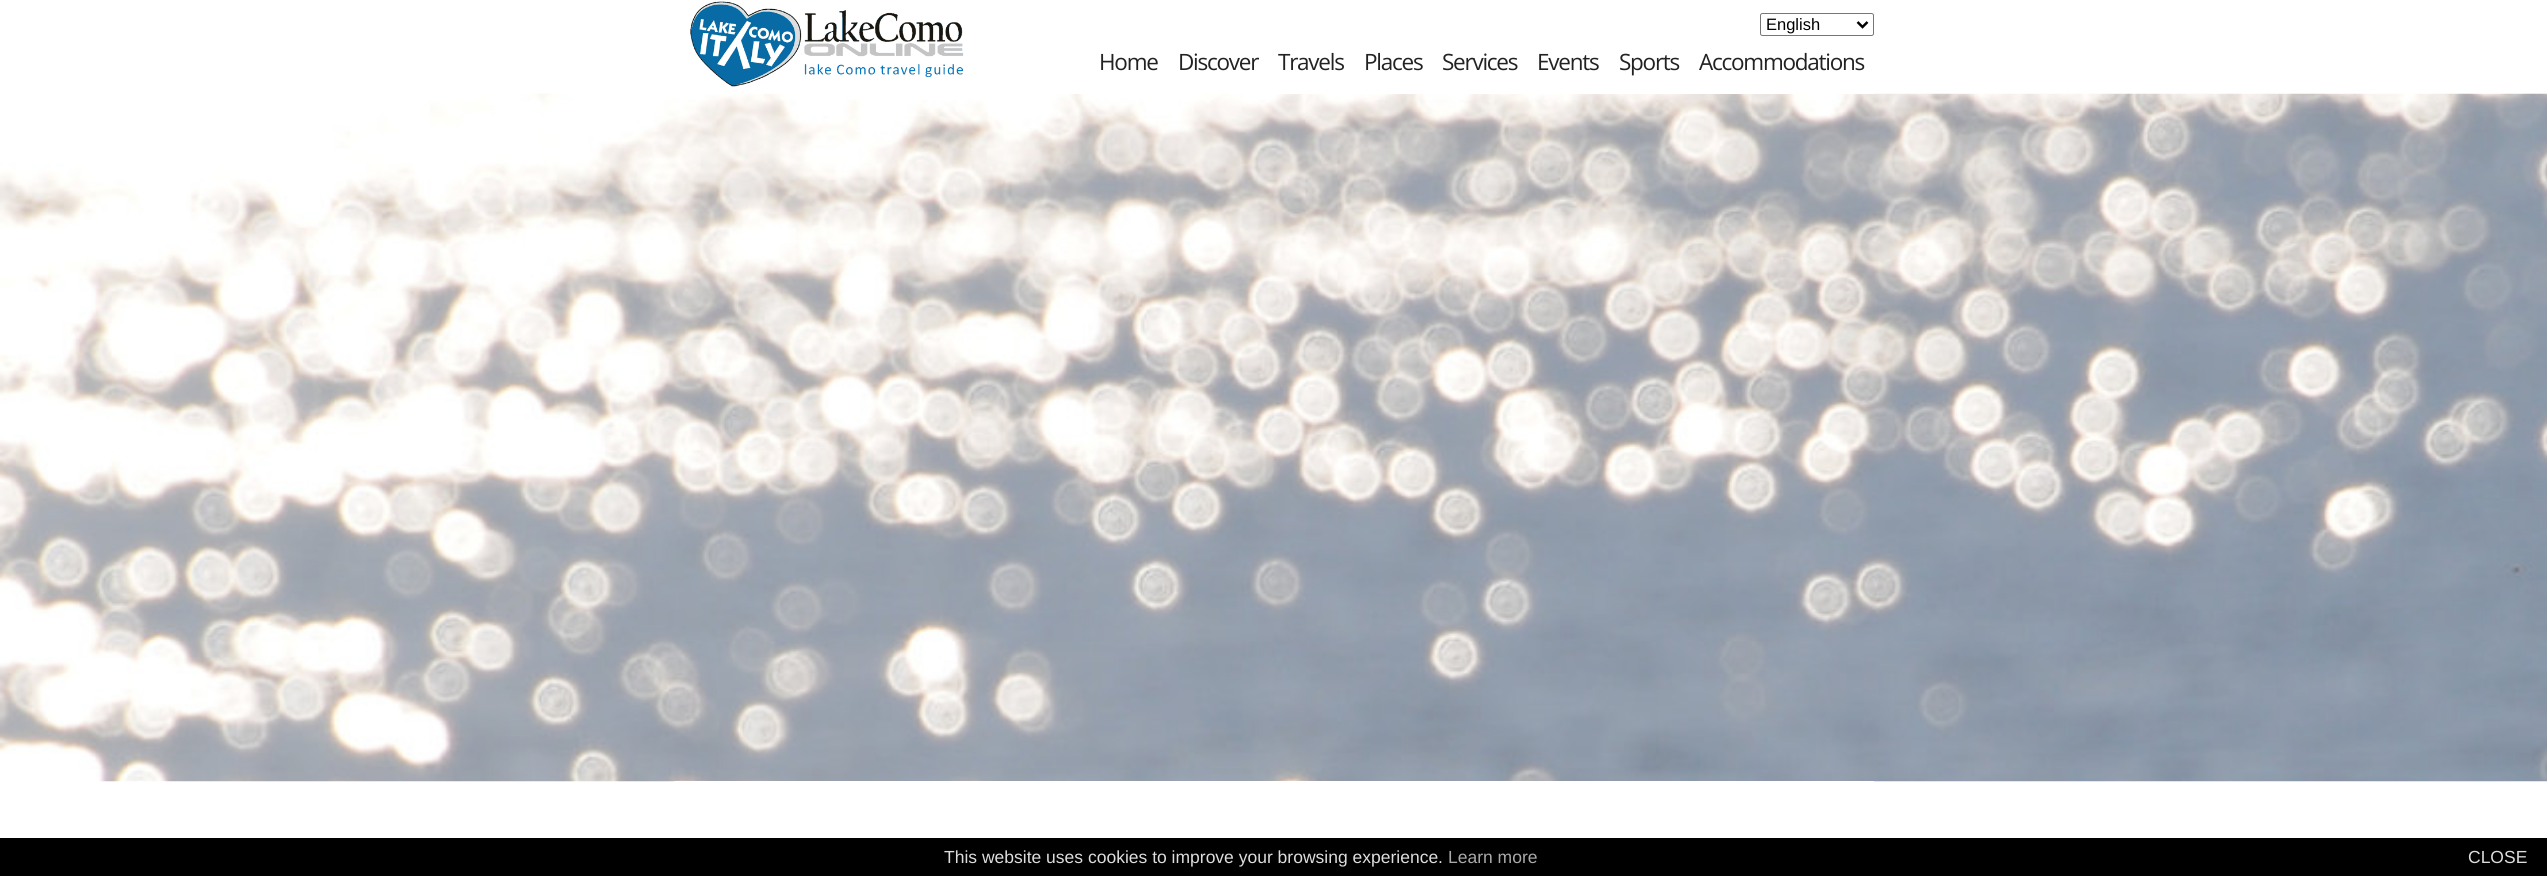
import math
import cairo


def use_color(cr, r, g, b):
  cr.set_source_rgb(r / 255, g / 255, b / 255)

def text(cr, x, y, s, family, size, color, bold=False, italic=False):
  cr.select_font_face(family, cairo.FONT_SLANT_ITALIC if italic else cairo.FONT_SLANT_NORMAL, cairo.FONT_WEIGHT_BOLD if bold else cairo.FONT_WEIGHT_NORMAL)
  cr.set_font_size(size)
  use_color(cr, *color)
  cr.move_to(x, y)
  cr.show_text(s)

def spaced_text(cr, x, y, s, letter, word):
  cr.move_to(x, y)
  for ch in s:
    cr.show_text(ch)
    cr.rel_move_to(letter + word * (ch == ' '), 0)

def box(cr, x, y, w, h, *color):
  use_color(cr, *color)
  cr.rectangle(x, y, w, h)
  cr.fill()

def round_rect(cr, x, y, w, h, r):
  cr.new_sub_path()
  for i, (u, v) in enumerate([(x + w - r, y + h - r), (x + r, y + h - r), (x + r, y + r), (x + w - r, y + r)]):
    cr.arc(u, v, r, i * math.pi / 2, (i + 1) * math.pi / 2)
  cr.close_path()

def picture(cr, path, x, y, w, h):
  cr.save()
  cr.set_source_surface(cairo.ImageSurface.create_from_png(path), x, y)
  cr.rectangle(x, y, w, h)
  cr.fill()
  cr.restore()

def draw(cr):
  use_color(cr, 255, 255, 255)
  cr.paint()
  picture(cr, "img_02.png", 0, 93, 2547, 689)
  box(cr, 1071, 93, 803, 1, 255, 255, 255)
  picture(cr, "img_01.png", 690, 1, 274, 86)
  round_rect(cr, 1760.5, 13.5, 113, 22, 2)
  use_color(cr, 118, 118, 118)
  cr.set_line_width(1)
  cr.stroke()
  cr.new_path()
  cr.move_to(1857.5, 22)
  cr.line_to(1862.5, 27)
  cr.line_to(1867.5, 22)
  use_color(cr, 0, 0, 0)
  cr.set_line_width(2.5)
  cr.stroke()
  box(cr, 674, 781, 1200, 1, 255, 255, 255)
  box(cr, 0, 838, 2547, 38, 0, 0, 0)
  text(cr, 1766, 30, "English", "Liberation Sans", 16.5, (0, 0, 0))
  cr.select_font_face("Open Sans")
  cr.set_font_size(22.5)
  use_color(cr, 34, 34, 34)
  spaced_text(cr, 1099, 70, "Home", -1.25, 0)
  spaced_text(cr, 1178, 70, "Discover", -1.25, 0)
  spaced_text(cr, 1278, 70, "Travels", -1.25, 0)
  spaced_text(cr, 1364, 70, "Places", -1.25, 0)
  spaced_text(cr, 1442, 70, "Services", -1.25, 0)
  spaced_text(cr, 1537, 70, "Events", -1.25, 0)
  spaced_text(cr, 1619, 70, "Sports", -1.25, 0)
  spaced_text(cr, 1699, 70, "Accommodations", -1.25, 0)
  text(cr, 944, 863, "This website uses cookies to improve your browsing experience.", "Liberation Sans", 17.5, (221, 221, 221))
  text(cr, 1448, 863, "Learn more", "Liberation Sans", 17.5, (170, 170, 170))
  text(cr, 2468, 863, "CLOSE", "Liberation Sans", 17.5, (221, 221, 221))


surface = cairo.ImageSurface(cairo.FORMAT_RGB24, 2547, 876)
cr = cairo.Context(surface)
options = cairo.FontOptions()
options.set_hint_metrics(cairo.HINT_METRICS_OFF)
options.set_hint_style(cairo.HINT_STYLE_NONE)
cr.set_font_options(options)
cr.set_miter_limit(4)
draw(cr)
surface.write_to_png("out.png")
